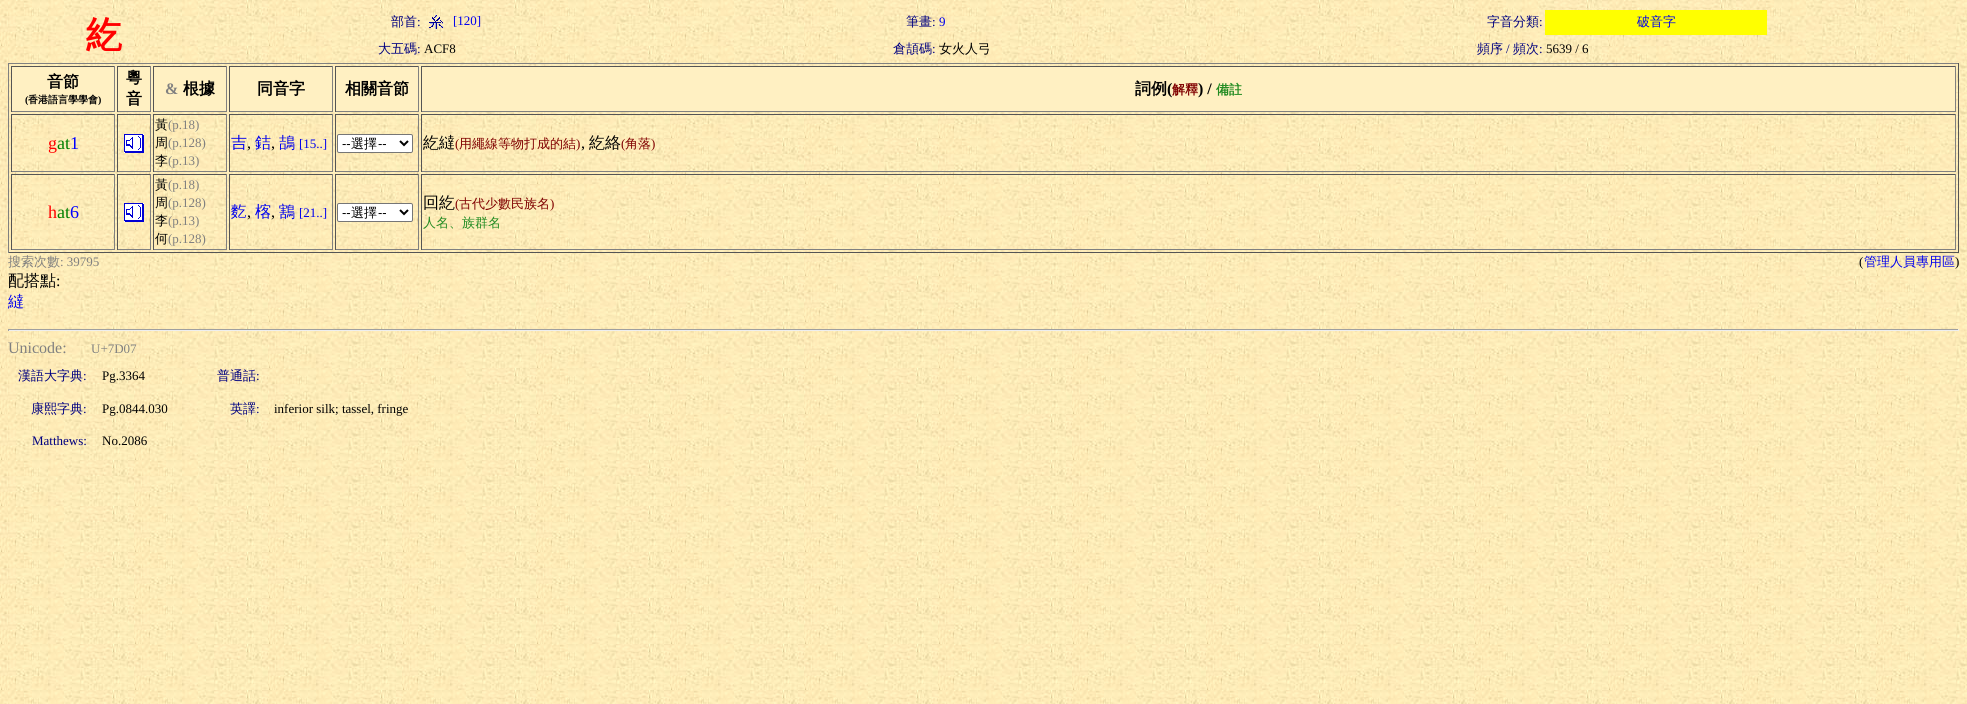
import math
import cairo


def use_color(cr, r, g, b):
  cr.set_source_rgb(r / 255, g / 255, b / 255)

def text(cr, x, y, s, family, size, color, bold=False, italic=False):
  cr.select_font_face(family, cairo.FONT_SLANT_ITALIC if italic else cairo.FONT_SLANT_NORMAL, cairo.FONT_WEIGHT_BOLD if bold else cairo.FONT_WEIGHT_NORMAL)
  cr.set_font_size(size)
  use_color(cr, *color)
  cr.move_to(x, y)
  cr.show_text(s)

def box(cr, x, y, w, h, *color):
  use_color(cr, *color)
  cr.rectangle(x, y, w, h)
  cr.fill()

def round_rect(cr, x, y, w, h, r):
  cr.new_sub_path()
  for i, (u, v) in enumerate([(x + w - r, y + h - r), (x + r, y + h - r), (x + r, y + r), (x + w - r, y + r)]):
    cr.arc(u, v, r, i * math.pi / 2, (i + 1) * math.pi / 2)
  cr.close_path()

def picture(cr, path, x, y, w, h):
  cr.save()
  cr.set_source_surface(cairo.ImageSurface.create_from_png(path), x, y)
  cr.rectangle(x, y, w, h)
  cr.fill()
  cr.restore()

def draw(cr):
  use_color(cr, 255, 255, 255)
  cr.paint()
  picture(cr, "img_01.png", 0, 0, 1967, 704)
  picture(cr, "img_02.png", 429, 15, 14, 14)
  box(cr, 1545, 10, 222, 25, 255, 255, 0)
  box(cr, 8, 63, 1951, 1, 128, 128, 128)
  box(cr, 1958, 63, 1, 190, 85, 85, 85)
  box(cr, 8, 252, 1951, 1, 85, 85, 85)
  box(cr, 8, 63, 1, 190, 128, 128, 128)
  box(cr, 12, 66, 1943, 46, 255, 240, 194)
  box(cr, 11, 66, 104, 1, 85, 85, 85)
  box(cr, 114, 66, 1, 46, 128, 128, 128)
  box(cr, 11, 111, 104, 1, 128, 128, 128)
  box(cr, 11, 66, 1, 46, 85, 85, 85)
  box(cr, 117, 66, 34, 1, 85, 85, 85)
  box(cr, 150, 66, 1, 46, 128, 128, 128)
  box(cr, 117, 111, 34, 1, 128, 128, 128)
  box(cr, 117, 66, 1, 46, 85, 85, 85)
  box(cr, 153, 66, 74, 1, 85, 85, 85)
  box(cr, 226, 66, 1, 46, 128, 128, 128)
  box(cr, 153, 111, 74, 1, 128, 128, 128)
  box(cr, 153, 66, 1, 46, 85, 85, 85)
  box(cr, 229, 66, 104, 1, 85, 85, 85)
  box(cr, 332, 66, 1, 46, 128, 128, 128)
  box(cr, 229, 111, 104, 1, 128, 128, 128)
  box(cr, 229, 66, 1, 46, 85, 85, 85)
  box(cr, 335, 66, 84, 1, 85, 85, 85)
  box(cr, 418, 66, 1, 46, 128, 128, 128)
  box(cr, 335, 111, 84, 1, 128, 128, 128)
  box(cr, 335, 66, 1, 46, 85, 85, 85)
  box(cr, 421, 66, 1535, 1, 85, 85, 85)
  box(cr, 1955, 66, 1, 46, 128, 128, 128)
  box(cr, 421, 111, 1535, 1, 128, 128, 128)
  box(cr, 421, 66, 1, 46, 85, 85, 85)
  box(cr, 11, 114, 104, 1, 85, 85, 85)
  box(cr, 114, 114, 1, 58, 128, 128, 128)
  box(cr, 11, 171, 104, 1, 128, 128, 128)
  box(cr, 11, 114, 1, 58, 85, 85, 85)
  box(cr, 117, 114, 34, 1, 85, 85, 85)
  box(cr, 150, 114, 1, 58, 128, 128, 128)
  box(cr, 117, 171, 34, 1, 128, 128, 128)
  box(cr, 117, 114, 1, 58, 85, 85, 85)
  picture(cr, "img_03.png", 124, 134, 20, 19)
  box(cr, 153, 114, 74, 1, 85, 85, 85)
  box(cr, 226, 114, 1, 58, 128, 128, 128)
  box(cr, 153, 171, 74, 1, 128, 128, 128)
  box(cr, 153, 114, 1, 58, 85, 85, 85)
  box(cr, 229, 114, 104, 1, 85, 85, 85)
  box(cr, 332, 114, 1, 58, 128, 128, 128)
  box(cr, 229, 171, 104, 1, 128, 128, 128)
  box(cr, 229, 114, 1, 58, 85, 85, 85)
  box(cr, 335, 114, 84, 1, 85, 85, 85)
  box(cr, 418, 114, 1, 58, 128, 128, 128)
  box(cr, 335, 171, 84, 1, 128, 128, 128)
  box(cr, 335, 114, 1, 58, 85, 85, 85)
  use_color(cr, 255, 255, 255)
  round_rect(cr, 337.5, 134.5, 75, 18, 1.5)
  cr.fill_preserve()
  use_color(cr, 118, 118, 118)
  cr.set_line_width(1)
  cr.stroke()
  cr.new_path()
  cr.move_to(400, 141)
  cr.line_to(404, 145)
  cr.line_to(408, 141)
  use_color(cr, 0, 0, 0)
  cr.set_line_width(2)
  cr.stroke()
  box(cr, 421, 114, 1535, 1, 85, 85, 85)
  box(cr, 1955, 114, 1, 58, 128, 128, 128)
  box(cr, 421, 171, 1535, 1, 128, 128, 128)
  box(cr, 421, 114, 1, 58, 85, 85, 85)
  box(cr, 11, 174, 104, 1, 85, 85, 85)
  box(cr, 114, 174, 1, 76, 128, 128, 128)
  box(cr, 11, 249, 104, 1, 128, 128, 128)
  box(cr, 11, 174, 1, 76, 85, 85, 85)
  box(cr, 117, 174, 34, 1, 85, 85, 85)
  box(cr, 150, 174, 1, 76, 128, 128, 128)
  box(cr, 117, 249, 34, 1, 128, 128, 128)
  box(cr, 117, 174, 1, 76, 85, 85, 85)
  picture(cr, "img_03.png", 124, 203, 20, 19)
  box(cr, 153, 174, 74, 1, 85, 85, 85)
  box(cr, 226, 174, 1, 76, 128, 128, 128)
  box(cr, 153, 249, 74, 1, 128, 128, 128)
  box(cr, 153, 174, 1, 76, 85, 85, 85)
  box(cr, 229, 174, 104, 1, 85, 85, 85)
  box(cr, 332, 174, 1, 76, 128, 128, 128)
  box(cr, 229, 249, 104, 1, 128, 128, 128)
  box(cr, 229, 174, 1, 76, 85, 85, 85)
  box(cr, 335, 174, 84, 1, 85, 85, 85)
  box(cr, 418, 174, 1, 76, 128, 128, 128)
  box(cr, 335, 249, 84, 1, 128, 128, 128)
  box(cr, 335, 174, 1, 76, 85, 85, 85)
  use_color(cr, 255, 255, 255)
  round_rect(cr, 337.5, 203.5, 75, 18, 1.5)
  cr.fill_preserve()
  use_color(cr, 118, 118, 118)
  cr.set_line_width(1)
  cr.stroke()
  cr.new_path()
  cr.move_to(400, 210)
  cr.line_to(404, 214)
  cr.line_to(408, 210)
  use_color(cr, 0, 0, 0)
  cr.set_line_width(2)
  cr.stroke()
  box(cr, 421, 174, 1535, 1, 85, 85, 85)
  box(cr, 1955, 174, 1, 76, 128, 128, 128)
  box(cr, 421, 249, 1535, 1, 128, 128, 128)
  box(cr, 421, 174, 1, 76, 85, 85, 85)
  box(cr, 8, 329, 1951, 1, 159, 159, 159)
  box(cr, 1958, 329, 1, 2, 238, 238, 238)
  box(cr, 8, 330, 1951, 1, 238, 238, 238)
  box(cr, 8, 329, 1, 2, 159, 159, 159)
  text(cr, 86, 47, "紇", "WenQuanYi Zen Hei", 36, (255, 0, 0), bold=True)
  text(cr, 391, 26, "部首", "WenQuanYi Zen Hei Medium", 13, (0, 0, 128))
  text(cr, 417, 26, ":", "Liberation Serif", 13, (0, 0, 128))
  text(cr, 453, 25, "[120]", "Liberation Serif", 13, (0, 0, 238))
  text(cr, 906, 26, "筆畫", "WenQuanYi Zen Hei Medium", 13, (0, 0, 128))
  text(cr, 932, 26, ":", "Liberation Serif", 13, (0, 0, 128))
  text(cr, 939, 26, "9", "Liberation Serif", 13, (0, 0, 238))
  text(cr, 1487, 26, "字音分類", "WenQuanYi Zen Hei Medium", 13, (0, 0, 128))
  text(cr, 1539, 26, ":", "Liberation Serif", 13, (0, 0, 128))
  text(cr, 1637, 26, "破音字", "WenQuanYi Zen Hei Medium", 13, (0, 0, 238))
  text(cr, 378, 53, "大五碼", "WenQuanYi Zen Hei Medium", 13, (0, 0, 128))
  text(cr, 417, 53, ":", "Liberation Serif", 13, (0, 0, 128))
  text(cr, 424, 53, "ACF8", "Liberation Serif", 13, (0, 0, 0))
  text(cr, 893, 53, "倉頡碼", "WenQuanYi Zen Hei Medium", 13, (0, 0, 128))
  text(cr, 932, 53, ":", "Liberation Serif", 13, (0, 0, 128))
  text(cr, 939, 53, "女火人弓", "WenQuanYi Zen Hei Medium", 13, (0, 0, 0))
  text(cr, 1477, 53, "頻序", "WenQuanYi Zen Hei Medium", 13, (0, 0, 128))
  text(cr, 1506, 53, "/", "Liberation Serif", 13, (0, 0, 128))
  text(cr, 1513, 53, "頻次", "WenQuanYi Zen Hei Medium", 13, (0, 0, 128))
  text(cr, 1539, 53, ":", "Liberation Serif", 13, (0, 0, 128))
  text(cr, 1546, 53, "5639 / 6", "Liberation Serif", 13, (0, 0, 0))
  text(cr, 47, 87, "音節", "WenQuanYi Zen Hei", 16, (0, 0, 0), bold=True)
  text(cr, 25, 103, "(", "Liberation Serif", 10, (0, 0, 0), bold=True)
  text(cr, 28, 103, "香港語言學學會", "WenQuanYi Zen Hei", 10, (0, 0, 0), bold=True)
  text(cr, 98, 103, ")", "Liberation Serif", 10, (0, 0, 0), bold=True)
  text(cr, 126, 83, "粵", "WenQuanYi Zen Hei", 16, (0, 0, 0), bold=True)
  text(cr, 126, 104, "音", "WenQuanYi Zen Hei", 16, (0, 0, 0), bold=True)
  text(cr, 165, 94, "&", "Liberation Serif", 16, (128, 128, 128), bold=True)
  text(cr, 183, 94, "根據", "WenQuanYi Zen Hei", 16, (0, 0, 0), bold=True)
  text(cr, 257, 94, "同音字", "WenQuanYi Zen Hei", 16, (0, 0, 0), bold=True)
  text(cr, 345, 94, "相關音節", "WenQuanYi Zen Hei", 16, (0, 0, 0), bold=True)
  text(cr, 1135, 94, "詞例", "WenQuanYi Zen Hei", 16, (0, 0, 0), bold=True)
  text(cr, 1167, 94, "(", "Liberation Serif", 16, (0, 0, 0), bold=True)
  text(cr, 1172, 94, "解釋", "WenQuanYi Zen Hei", 13, (128, 0, 0), bold=True)
  text(cr, 1198, 94, ") /", "Liberation Serif", 16, (0, 0, 0), bold=True)
  text(cr, 1216, 94, "備註", "WenQuanYi Zen Hei", 13, (34, 139, 34), bold=True)
  text(cr, 48, 149, "g", "Liberation Serif", 18, (255, 0, 0))
  text(cr, 57, 149, "at", "Liberation Serif", 18, (0, 128, 0))
  text(cr, 70, 149, "1", "Liberation Serif", 18, (0, 0, 255))
  text(cr, 155, 129, "黃", "WenQuanYi Zen Hei Medium", 13, (0, 0, 0))
  text(cr, 168, 129, "(p.18)", "Liberation Serif", 13, (128, 128, 128))
  text(cr, 155, 147, "周", "WenQuanYi Zen Hei Medium", 13, (0, 0, 0))
  text(cr, 168, 147, "(p.128)", "Liberation Serif", 13, (128, 128, 128))
  text(cr, 155, 165, "李", "WenQuanYi Zen Hei Medium", 13, (0, 0, 0))
  text(cr, 168, 165, "(p.13)", "Liberation Serif", 13, (128, 128, 128))
  text(cr, 231, 148, "吉", "WenQuanYi Zen Hei Medium", 16, (0, 0, 238))
  text(cr, 247, 148, ",", "Liberation Serif", 16, (0, 0, 0))
  text(cr, 255, 148, "銡", "WenQuanYi Zen Hei Medium", 16, (0, 0, 238))
  text(cr, 271, 148, ",", "Liberation Serif", 16, (0, 0, 0))
  text(cr, 279, 148, "鴶", "WenQuanYi Zen Hei Medium", 16, (0, 0, 238))
  text(cr, 299, 148, "[15..]", "Liberation Serif", 13, (0, 0, 238))
  text(cr, 342, 148, "--", "Liberation Sans", 13, (0, 0, 0))
  text(cr, 351, 148, "選擇", "WenQuanYi Zen Hei Medium", 13, (0, 0, 0))
  text(cr, 378, 148, "--", "Liberation Sans", 13, (0, 0, 0))
  text(cr, 423, 148, "紇繨", "WenQuanYi Zen Hei Medium", 16, (0, 0, 0))
  text(cr, 455, 148, "(", "Liberation Serif", 13, (128, 0, 0))
  text(cr, 459, 148, "用繩線等物打成的結", "WenQuanYi Zen Hei Medium", 13, (128, 0, 0))
  text(cr, 576, 148, ")", "Liberation Serif", 13, (128, 0, 0))
  text(cr, 581, 148, ",", "Liberation Serif", 16, (0, 0, 0))
  text(cr, 589, 148, "紇絡", "WenQuanYi Zen Hei Medium", 16, (0, 0, 0))
  text(cr, 621, 148, "(", "Liberation Serif", 13, (128, 0, 0))
  text(cr, 625, 148, "角落", "WenQuanYi Zen Hei Medium", 13, (128, 0, 0))
  text(cr, 651, 148, ")", "Liberation Serif", 13, (128, 0, 0))
  text(cr, 48, 218, "h", "Liberation Serif", 18, (255, 0, 0))
  text(cr, 57, 218, "at", "Liberation Serif", 18, (0, 128, 0))
  text(cr, 70, 218, "6", "Liberation Serif", 18, (0, 0, 255))
  text(cr, 155, 189, "黃", "WenQuanYi Zen Hei Medium", 13, (0, 0, 0))
  text(cr, 168, 189, "(p.18)", "Liberation Serif", 13, (128, 128, 128))
  text(cr, 155, 207, "周", "WenQuanYi Zen Hei Medium", 13, (0, 0, 0))
  text(cr, 168, 207, "(p.128)", "Liberation Serif", 13, (128, 128, 128))
  text(cr, 155, 225, "李", "WenQuanYi Zen Hei Medium", 13, (0, 0, 0))
  text(cr, 168, 225, "(p.13)", "Liberation Serif", 13, (128, 128, 128))
  text(cr, 155, 243, "何", "WenQuanYi Zen Hei Medium", 13, (0, 0, 0))
  text(cr, 168, 243, "(p.128)", "Liberation Serif", 13, (128, 128, 128))
  text(cr, 231, 217, "麧", "WenQuanYi Zen Hei Medium", 16, (0, 0, 238))
  text(cr, 247, 217, ",", "Liberation Serif", 16, (0, 0, 0))
  text(cr, 255, 217, "楁", "WenQuanYi Zen Hei Medium", 16, (0, 0, 238))
  text(cr, 271, 217, ",", "Liberation Serif", 16, (0, 0, 0))
  text(cr, 279, 217, "鶷", "WenQuanYi Zen Hei Medium", 16, (0, 0, 238))
  text(cr, 299, 217, "[21..]", "Liberation Serif", 13, (0, 0, 238))
  text(cr, 342, 217, "--", "Liberation Sans", 13, (0, 0, 0))
  text(cr, 351, 217, "選擇", "WenQuanYi Zen Hei Medium", 13, (0, 0, 0))
  text(cr, 378, 217, "--", "Liberation Sans", 13, (0, 0, 0))
  text(cr, 423, 208, "回紇", "WenQuanYi Zen Hei Medium", 16, (0, 0, 0))
  text(cr, 455, 208, "(", "Liberation Serif", 13, (128, 0, 0))
  text(cr, 459, 208, "古代少數民族名", "WenQuanYi Zen Hei Medium", 13, (128, 0, 0))
  text(cr, 550, 208, ")", "Liberation Serif", 13, (128, 0, 0))
  text(cr, 423, 227, "人名、族群名", "WenQuanYi Zen Hei Medium", 13, (34, 139, 34))
  text(cr, 8, 266, "搜索次數", "WenQuanYi Zen Hei Medium", 13, (128, 128, 128))
  text(cr, 60, 266, ": 39795", "Liberation Serif", 13, (128, 128, 128))
  text(cr, 1859, 266, "(", "Liberation Serif", 13, (0, 0, 0))
  text(cr, 1864, 266, "管理人員專用區", "WenQuanYi Zen Hei Medium", 13, (0, 0, 238))
  text(cr, 1955, 266, ")", "Liberation Serif", 13, (0, 0, 0))
  text(cr, 8, 286, "配搭點", "WenQuanYi Zen Hei Medium", 16, (0, 0, 0))
  text(cr, 56, 286, ":", "Liberation Serif", 16, (0, 0, 0))
  text(cr, 8, 307, "繨", "WenQuanYi Zen Hei Medium", 16, (0, 0, 238))
  text(cr, 8, 353, "Unicode:", "Liberation Serif", 16, (128, 128, 128))
  text(cr, 91, 353, "U+7D07", "Liberation Serif", 13, (128, 128, 128))
  text(cr, 18, 380, "漢語大字典", "WenQuanYi Zen Hei Medium", 13, (0, 0, 128))
  text(cr, 83, 380, ":", "Liberation Serif", 13, (0, 0, 128))
  text(cr, 102, 380, "Pg.3364", "Liberation Serif", 13, (0, 0, 0))
  text(cr, 217, 380, "普通話", "WenQuanYi Zen Hei Medium", 13, (0, 0, 128))
  text(cr, 256, 380, ":", "Liberation Serif", 13, (0, 0, 128))
  text(cr, 31, 413, "康熙字典", "WenQuanYi Zen Hei Medium", 13, (0, 0, 128))
  text(cr, 83, 413, ":", "Liberation Serif", 13, (0, 0, 128))
  text(cr, 102, 413, "Pg.0844.030", "Liberation Serif", 13, (0, 0, 0))
  text(cr, 230, 413, "英譯", "WenQuanYi Zen Hei Medium", 13, (0, 0, 128))
  text(cr, 256, 413, ":", "Liberation Serif", 13, (0, 0, 128))
  text(cr, 274, 413, "inferior silk; tassel, fringe", "Liberation Serif", 13, (0, 0, 0))
  text(cr, 32, 445, "Matthews:", "Liberation Serif", 13, (0, 0, 128))
  text(cr, 102, 445, "No.2086", "Liberation Serif", 13, (0, 0, 0))


surface = cairo.ImageSurface(cairo.FORMAT_RGB24, 1967, 704)
cr = cairo.Context(surface)
options = cairo.FontOptions()
options.set_hint_metrics(cairo.HINT_METRICS_OFF)
options.set_hint_style(cairo.HINT_STYLE_NONE)
cr.set_font_options(options)
cr.set_miter_limit(4)
draw(cr)
surface.write_to_png("out.png")
